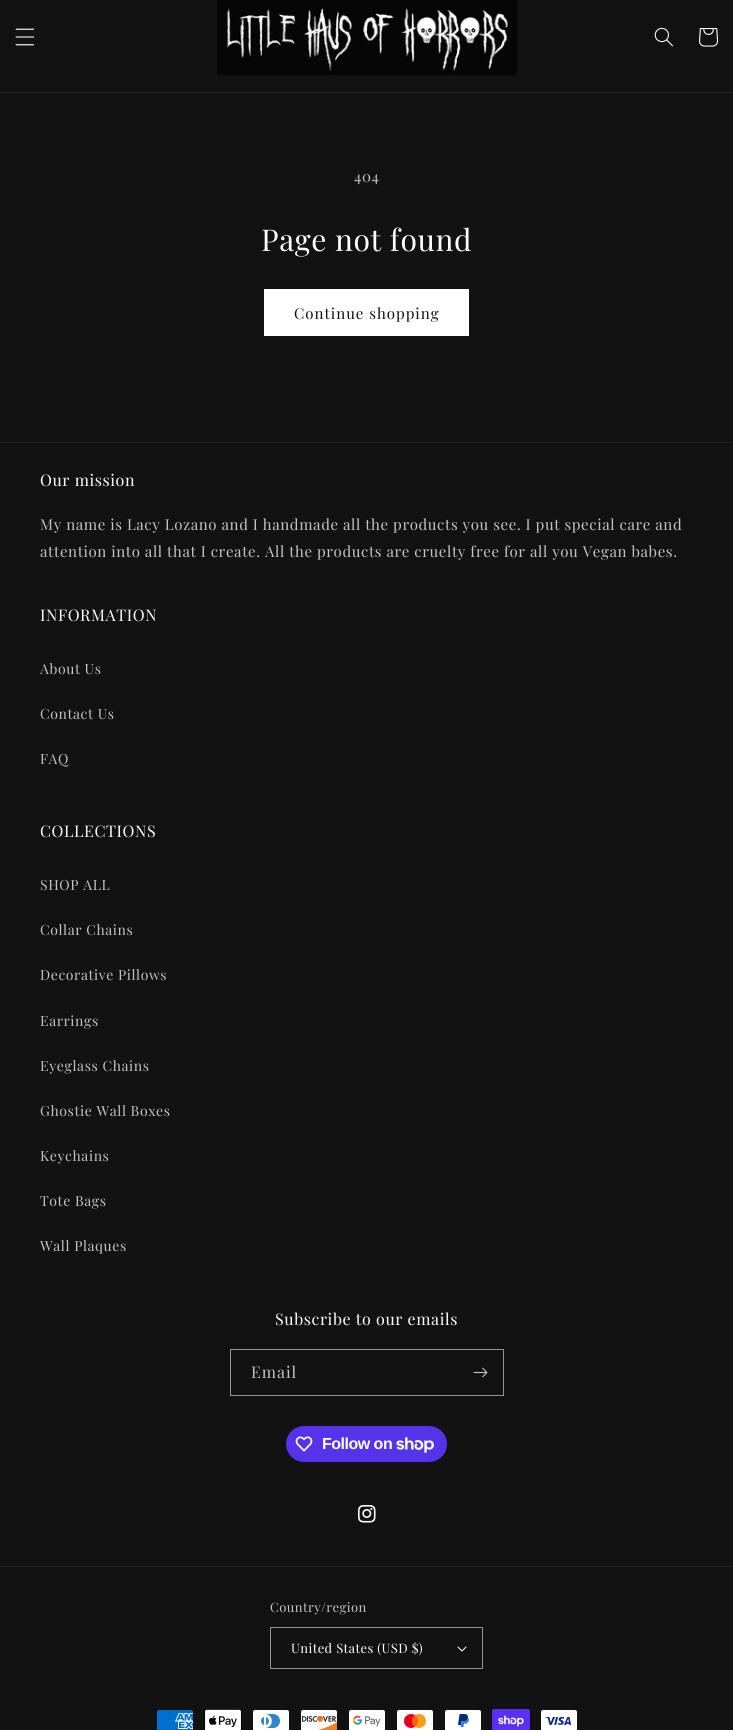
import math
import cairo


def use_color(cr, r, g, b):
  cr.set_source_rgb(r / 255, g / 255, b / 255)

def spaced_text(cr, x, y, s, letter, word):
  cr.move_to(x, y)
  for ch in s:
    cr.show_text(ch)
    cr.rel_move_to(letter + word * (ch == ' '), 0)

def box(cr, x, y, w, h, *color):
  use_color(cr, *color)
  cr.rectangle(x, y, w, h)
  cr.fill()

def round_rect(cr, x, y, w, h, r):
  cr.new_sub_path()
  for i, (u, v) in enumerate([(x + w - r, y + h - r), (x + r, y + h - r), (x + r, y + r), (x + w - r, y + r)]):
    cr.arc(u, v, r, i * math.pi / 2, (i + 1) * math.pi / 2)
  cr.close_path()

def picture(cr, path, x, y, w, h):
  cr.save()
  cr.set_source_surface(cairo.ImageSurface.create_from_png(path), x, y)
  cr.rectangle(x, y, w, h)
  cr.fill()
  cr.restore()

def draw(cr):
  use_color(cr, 18, 18, 18)
  cr.paint()
  box(cr, 0, 92, 733, 1, 37, 37, 37)
  picture(cr, "img_01.png", 15, 28, 20, 18)
  picture(cr, "img_02.png", 217, 0, 300, 75)
  picture(cr, "img_03.png", 654, 27, 19, 20)
  picture(cr, "img_04.png", 699, 28, 20, 19)
  box(cr, 264, 289, 205, 47, 255, 255, 255)
  box(cr, 0, 442, 733, 1, 37, 37, 37)
  cr.rectangle(230.5, 1349.5, 273, 46)
  use_color(cr, 148, 148, 148)
  cr.set_line_width(1)
  cr.stroke()
  picture(cr, "img_05.png", 473, 1367, 15, 11)
  use_color(cr, 84, 51, 235)
  round_rect(cr, 286, 1426, 161, 36, 18)
  cr.fill()
  picture(cr, "img_06.png", 295, 1436, 18, 16)
  picture(cr, "img_07.png", 396, 1437, 38, 16)
  picture(cr, "img_08.png", 358, 1505, 18, 18)
  box(cr, 0, 1566, 733, 1, 37, 37, 37)
  picture(cr, "img_09.png", 457, 1646, 10, 6)
  cr.rectangle(270.5, 1627.5, 212, 41)
  use_color(cr, 148, 148, 148)
  cr.stroke()
  picture(cr, "img_10.png", 157, 1710, 36, 20)
  picture(cr, "img_11.png", 204, 1709, 38, 21)
  picture(cr, "img_12.png", 253, 1710, 36, 20)
  picture(cr, "img_13.png", 301, 1710, 36, 20)
  picture(cr, "img_14.png", 349, 1710, 36, 20)
  picture(cr, "img_15.png", 397, 1710, 36, 20)
  picture(cr, "img_16.png", 445, 1710, 36, 20)
  picture(cr, "img_17.png", 492, 1709, 38, 21)
  picture(cr, "img_18.png", 541, 1710, 36, 20)
  cr.select_font_face("Playfair Display")
  cr.set_font_size(15)
  use_color(cr, 196, 196, 196)
  spaced_text(cr, 354, 182, "404", 0.6, 0)
  cr.set_font_size(30)
  use_color(cr, 255, 255, 255)
  spaced_text(cr, 261, 251, "Page not found", 0.6, 0)
  cr.set_font_size(15)
  use_color(cr, 16, 15, 15)
  spaced_text(cr, 294, 319, "Continue shopping", 1, 0)
  cr.set_font_size(16)
  use_color(cr, 255, 255, 255)
  spaced_text(cr, 40, 486, "Our mission", 0.6, 0)
  cr.set_font_size(15)
  use_color(cr, 196, 196, 196)
  spaced_text(cr, 40, 530, "My name is Lacy Lozano and I handmade all the products you see. I put special care and", 0.6, 0)
  spaced_text(cr, 40, 557, "attention into all that I create. All the products are cruelty free for all you Vegan babes.", 0.6, 0)
  cr.set_font_size(16)
  use_color(cr, 255, 255, 255)
  spaced_text(cr, 40, 621, "INFORMATION", 0.6, 0)
  cr.set_font_size(14)
  use_color(cr, 196, 196, 196)
  spaced_text(cr, 40, 674, "About Us", 0.6, 0)
  spaced_text(cr, 40, 719, "Contact Us", 0.6, 0)
  spaced_text(cr, 40, 764, "FAQ", 0.6, 0)
  cr.set_font_size(16)
  use_color(cr, 255, 255, 255)
  spaced_text(cr, 40, 837, "COLLECTIONS", 0.6, 0)
  cr.set_font_size(14)
  use_color(cr, 196, 196, 196)
  spaced_text(cr, 40, 890, "SHOP ALL", 0.6, 0)
  spaced_text(cr, 40, 935, "Collar Chains", 0.6, 0)
  spaced_text(cr, 40, 980, "Decorative Pillows", 0.6, 0)
  spaced_text(cr, 40, 1026, "Earrings", 0.6, 0)
  spaced_text(cr, 40, 1071, "Eyeglass Chains", 0.6, 0)
  spaced_text(cr, 40, 1116, "Ghostie Wall Boxes", 0.6, 0)
  spaced_text(cr, 40, 1161, "Keychains", 0.6, 0)
  spaced_text(cr, 40, 1206, "Tote Bags", 0.6, 0)
  spaced_text(cr, 40, 1251, "Wall Plaques", 0.6, 0)
  cr.set_font_size(16)
  use_color(cr, 255, 255, 255)
  spaced_text(cr, 275, 1325, "Subscribe to our emails", 0.6, 0)
  use_color(cr, 196, 196, 196)
  spaced_text(cr, 251, 1378, "Email", 1, 0)
  cr.select_font_face("Liberation Sans", cairo.FONT_SLANT_NORMAL, cairo.FONT_WEIGHT_BOLD)
  use_color(cr, 255, 255, 255)
  spaced_text(cr, 322, 1449, "Follow on", -0.5, 0)
  cr.select_font_face("Playfair Display")
  cr.set_font_size(13)
  use_color(cr, 196, 196, 196)
  spaced_text(cr, 270, 1612, "Country/region", 0.4, 0)
  use_color(cr, 255, 255, 255)
  spaced_text(cr, 291, 1653, "United States (USD $)", 0.4, 0)


surface = cairo.ImageSurface(cairo.FORMAT_RGB24, 733, 1730)
cr = cairo.Context(surface)
options = cairo.FontOptions()
options.set_hint_metrics(cairo.HINT_METRICS_OFF)
options.set_hint_style(cairo.HINT_STYLE_NONE)
cr.set_font_options(options)
cr.set_miter_limit(4)
draw(cr)
surface.write_to_png("out.png")
